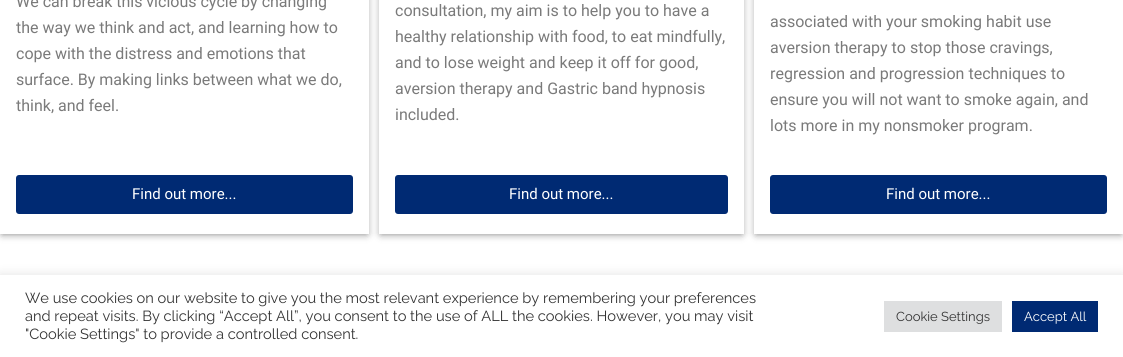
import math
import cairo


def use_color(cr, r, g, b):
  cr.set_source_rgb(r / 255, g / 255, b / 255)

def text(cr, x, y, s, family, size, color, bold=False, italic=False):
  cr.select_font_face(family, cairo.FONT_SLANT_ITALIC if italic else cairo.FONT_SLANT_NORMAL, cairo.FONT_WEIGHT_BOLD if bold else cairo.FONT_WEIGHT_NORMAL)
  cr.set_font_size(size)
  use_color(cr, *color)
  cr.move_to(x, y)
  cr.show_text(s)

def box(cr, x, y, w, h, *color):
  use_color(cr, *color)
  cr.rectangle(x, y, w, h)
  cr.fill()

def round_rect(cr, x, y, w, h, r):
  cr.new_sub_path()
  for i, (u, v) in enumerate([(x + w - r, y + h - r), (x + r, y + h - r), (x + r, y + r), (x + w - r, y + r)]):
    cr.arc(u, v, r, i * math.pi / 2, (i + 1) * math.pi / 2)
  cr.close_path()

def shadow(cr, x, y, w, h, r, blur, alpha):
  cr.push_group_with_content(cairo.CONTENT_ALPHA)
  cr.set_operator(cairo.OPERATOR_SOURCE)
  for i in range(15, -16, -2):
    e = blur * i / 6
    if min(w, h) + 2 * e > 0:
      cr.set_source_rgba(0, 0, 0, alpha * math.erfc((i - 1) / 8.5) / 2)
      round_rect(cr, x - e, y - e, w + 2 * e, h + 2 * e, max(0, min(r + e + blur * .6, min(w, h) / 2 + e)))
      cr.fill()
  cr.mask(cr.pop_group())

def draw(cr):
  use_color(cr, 255, 255, 255)
  cr.paint()
  cr.save()
  cr.set_fill_rule(cairo.FILL_RULE_EVEN_ODD)
  cr.new_path()
  cr.move_to(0, 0)
  cr.line_to(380, 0)
  cr.line_to(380, 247)
  cr.line_to(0, 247)
  cr.close_path()
  cr.move_to(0, -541)
  cr.line_to(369, -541)
  cr.line_to(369, 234)
  cr.line_to(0, 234)
  cr.close_path()
  cr.clip()
  use_color(cr, 0, 0, 0)
  shadow(cr, 2, -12, 365, 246, 0, 4, 0.5)
  cr.restore()
  use_color(cr, 0, 42, 115)
  round_rect(cr, 16, 175, 337, 39, 3)
  cr.fill()
  cr.save()
  cr.set_fill_rule(cairo.FILL_RULE_EVEN_ODD)
  cr.new_path()
  cr.move_to(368, 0)
  cr.line_to(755, 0)
  cr.line_to(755, 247)
  cr.line_to(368, 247)
  cr.close_path()
  cr.move_to(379, -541)
  cr.line_to(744, -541)
  cr.line_to(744, 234)
  cr.line_to(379, 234)
  cr.close_path()
  cr.clip()
  use_color(cr, 0, 0, 0)
  shadow(cr, 381, -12, 361, 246, 0, 4, 0.5)
  cr.restore()
  round_rect(cr, 395, 175, 333, 39, 3)
  cr.fill()
  cr.save()
  cr.set_fill_rule(cairo.FILL_RULE_EVEN_ODD)
  cr.new_path()
  cr.move_to(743, 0)
  cr.line_to(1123, 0)
  cr.line_to(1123, 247)
  cr.line_to(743, 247)
  cr.close_path()
  cr.move_to(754, -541)
  cr.line_to(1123, -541)
  cr.line_to(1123, 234)
  cr.line_to(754, 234)
  cr.close_path()
  cr.clip()
  use_color(cr, 0, 0, 0)
  shadow(cr, 756, -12, 365, 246, 0, 4, 0.5)
  cr.restore()
  round_rect(cr, 770, 175, 337, 39, 3)
  cr.fill()
  use_color(cr, 172, 171, 171)
  shadow(cr, 0, 274, 1123, 82, 0, 5, 0.3)
  box(cr, 0, 275, 1123, 82, 255, 255, 255)
  box(cr, 884, 301, 118, 31, 222, 223, 224)
  box(cr, 1012, 301, 86, 31, 0, 42, 115)
  text(cr, 16, 7, "We can break this vicious cycle by changing", "Roboto", 16, (122, 122, 122))
  text(cr, 16, 33, "the way we think and act, and learning how to", "Roboto", 16, (122, 122, 122))
  text(cr, 16, 59, "cope with the distress and emotions that", "Roboto", 16, (122, 122, 122))
  text(cr, 16, 85, "surface. By making links between what we do,", "Roboto", 16, (122, 122, 122))
  text(cr, 16, 111, "think, and feel.", "Roboto", 16, (122, 122, 122))
  text(cr, 132, 199, "Find out more...", "Roboto", 15, (255, 255, 255))
  text(cr, 395, 16, "consultation, my aim is to help you to have a", "Roboto", 16, (122, 122, 122))
  text(cr, 395, 42, "healthy relationship with food, to eat mindfully,", "Roboto", 16, (122, 122, 122))
  text(cr, 395, 68, "and to lose weight and keep it off for good,", "Roboto", 16, (122, 122, 122))
  text(cr, 395, 94, "aversion therapy and Gastric band hypnosis", "Roboto", 16, (122, 122, 122))
  text(cr, 395, 120, "included.", "Roboto", 16, (122, 122, 122))
  text(cr, 509, 199, "Find out more...", "Roboto", 15, (255, 255, 255))
  text(cr, 770, 27, "associated with your smoking habit use", "Roboto", 16, (122, 122, 122))
  text(cr, 770, 53, "aversion therapy to stop those cravings,", "Roboto", 16, (122, 122, 122))
  text(cr, 770, 79, "regression and progression techniques to", "Roboto", 16, (122, 122, 122))
  text(cr, 770, 105, "ensure you will not want to smoke again, and", "Roboto", 16, (122, 122, 122))
  text(cr, 770, 131, "lots more in my nonsmoker program.", "Roboto", 16, (122, 122, 122))
  text(cr, 886, 199, "Find out more...", "Roboto", 15, (255, 255, 255))
  text(cr, 25, 303, "We use cookies on our website to give you the most relevant experience by remembering your preferences", "Raleway", 14.65, (51, 51, 51))
  text(cr, 25, 321, "and repeat visits. By clicking “Accept All”, you consent to the use of ALL the cookies. However, you may visit", "Raleway", 14.65, (51, 51, 51))
  text(cr, 25, 339, "\"Cookie Settings\" to provide a controlled consent.", "Raleway", 14.65, (51, 51, 51))
  text(cr, 896, 321, "Cookie Settings", "Raleway", 13, (51, 51, 51))
  text(cr, 1024, 321, "Accept All", "Raleway", 13, (255, 255, 255))


surface = cairo.ImageSurface(cairo.FORMAT_RGB24, 1123, 357)
cr = cairo.Context(surface)
options = cairo.FontOptions()
options.set_hint_metrics(cairo.HINT_METRICS_OFF)
options.set_hint_style(cairo.HINT_STYLE_NONE)
cr.set_font_options(options)
cr.set_miter_limit(4)
draw(cr)
surface.write_to_png("out.png")
